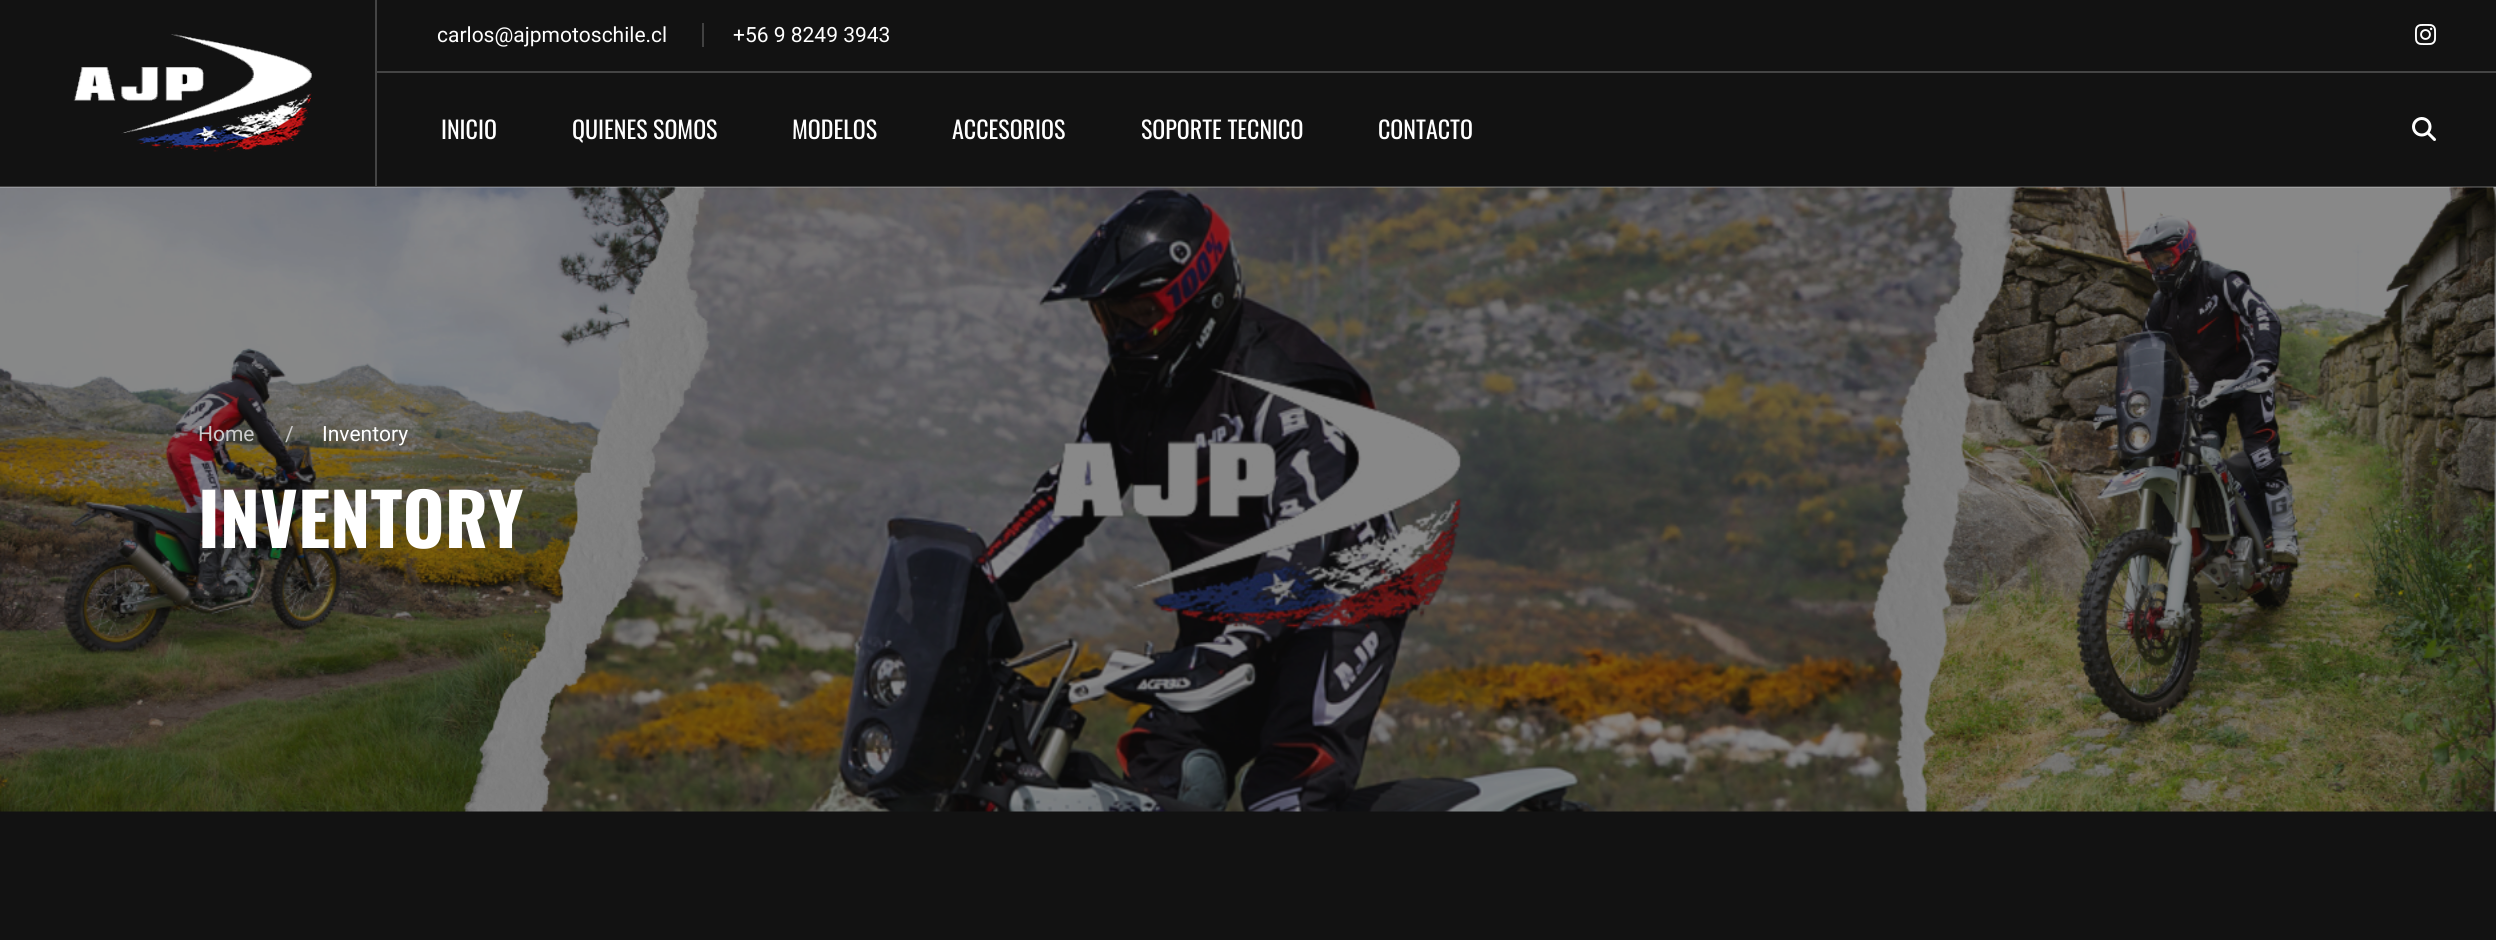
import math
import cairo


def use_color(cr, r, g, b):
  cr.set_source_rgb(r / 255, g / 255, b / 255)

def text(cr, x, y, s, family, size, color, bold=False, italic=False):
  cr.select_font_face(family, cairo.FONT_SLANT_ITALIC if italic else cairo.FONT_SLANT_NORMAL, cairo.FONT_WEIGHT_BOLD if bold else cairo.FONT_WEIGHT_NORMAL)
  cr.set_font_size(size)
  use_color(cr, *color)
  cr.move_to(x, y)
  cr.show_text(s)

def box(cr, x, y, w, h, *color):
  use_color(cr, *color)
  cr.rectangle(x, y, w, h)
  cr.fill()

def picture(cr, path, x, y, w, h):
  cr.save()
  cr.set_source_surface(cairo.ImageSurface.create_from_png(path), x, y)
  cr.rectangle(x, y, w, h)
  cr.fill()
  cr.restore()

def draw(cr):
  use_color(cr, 18, 18, 18)
  cr.paint()
  picture(cr, "img_04.png", 0, 187, 2496, 625)
  cr.set_source_rgba(1, 1, 1, 0.2)
  cr.rectangle(0, 186, 2496, 2)
  cr.fill()
  box(cr, 375, 0, 2, 186, 68, 68, 68)
  picture(cr, "img_01.png", 73, 34, 239, 118)
  box(cr, 377, 71, 2119, 2, 68, 68, 68)
  box(cr, 702, 23, 2, 24, 65, 65, 65)
  picture(cr, "img_02.png", 2415, 24, 21, 21)
  picture(cr, "img_03.png", 2412, 117, 24, 24)
  text(cr, 437, 42, "carlos@ajpmotoschile.cl", "Roboto", 21, (255, 255, 255))
  text(cr, 733, 42, "+56 9 8249 3943", "Roboto", 21, (255, 255, 255))
  text(cr, 441, 139, "INICIO", "Oswald", 24, (255, 255, 255))
  text(cr, 572, 139, "QUIENES SOMOS", "Oswald", 24, (255, 255, 255))
  text(cr, 792, 139, "MODELOS", "Oswald", 24, (255, 255, 255))
  text(cr, 952, 139, "ACCESORIOS", "Oswald", 24, (255, 255, 255))
  text(cr, 1141, 139, "SOPORTE TECNICO", "Oswald", 24, (255, 255, 255))
  text(cr, 1378, 139, "CONTACTO", "Oswald", 24, (255, 255, 255))
  text(cr, 198, 441, "Home", "Roboto", 21, (204, 204, 204))
  text(cr, 285, 441, "/", "Roboto", 21, (204, 204, 204))
  text(cr, 322, 441, "Inventory", "Roboto", 21, (255, 255, 255))
  text(cr, 198, 548, "INVENTORY", "Oswald", 72, (255, 255, 255), bold=True)


surface = cairo.ImageSurface(cairo.FORMAT_RGB24, 2496, 940)
cr = cairo.Context(surface)
options = cairo.FontOptions()
options.set_hint_metrics(cairo.HINT_METRICS_OFF)
options.set_hint_style(cairo.HINT_STYLE_NONE)
cr.set_font_options(options)
cr.set_miter_limit(4)
draw(cr)
surface.write_to_png("out.png")
